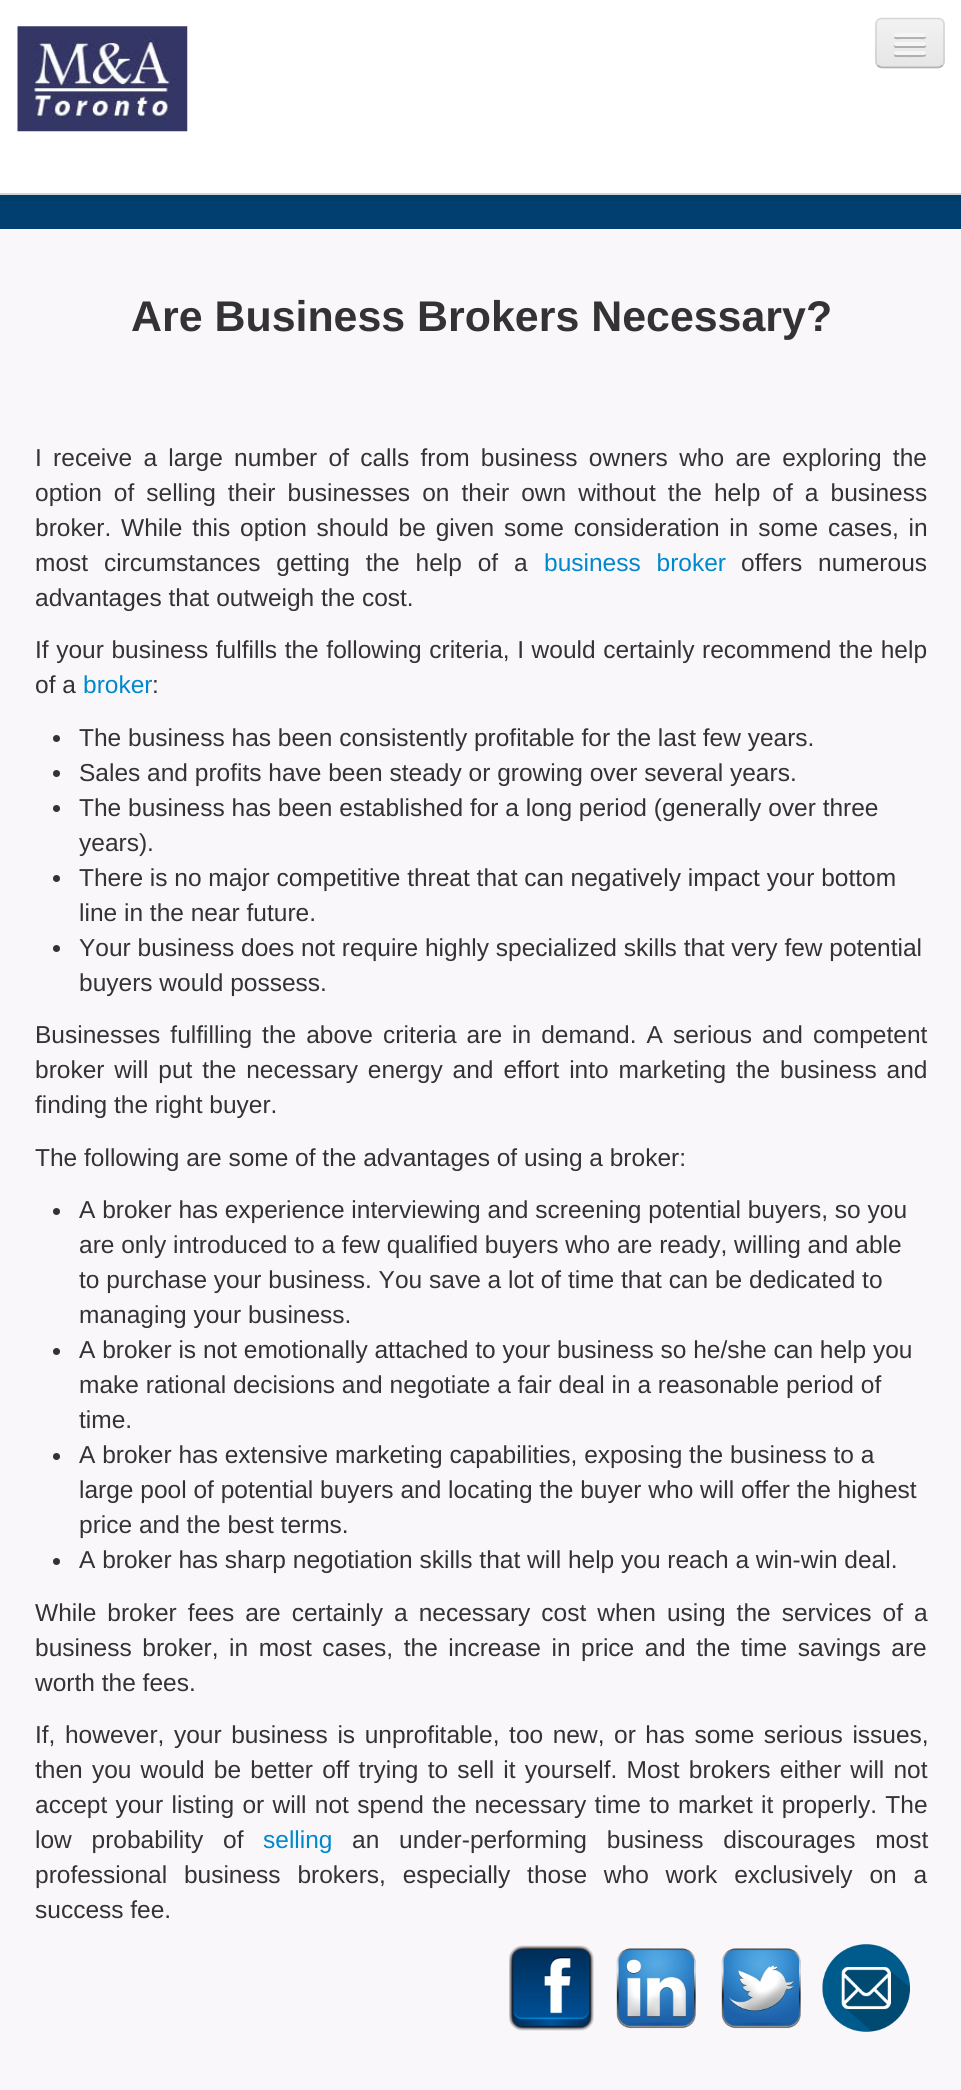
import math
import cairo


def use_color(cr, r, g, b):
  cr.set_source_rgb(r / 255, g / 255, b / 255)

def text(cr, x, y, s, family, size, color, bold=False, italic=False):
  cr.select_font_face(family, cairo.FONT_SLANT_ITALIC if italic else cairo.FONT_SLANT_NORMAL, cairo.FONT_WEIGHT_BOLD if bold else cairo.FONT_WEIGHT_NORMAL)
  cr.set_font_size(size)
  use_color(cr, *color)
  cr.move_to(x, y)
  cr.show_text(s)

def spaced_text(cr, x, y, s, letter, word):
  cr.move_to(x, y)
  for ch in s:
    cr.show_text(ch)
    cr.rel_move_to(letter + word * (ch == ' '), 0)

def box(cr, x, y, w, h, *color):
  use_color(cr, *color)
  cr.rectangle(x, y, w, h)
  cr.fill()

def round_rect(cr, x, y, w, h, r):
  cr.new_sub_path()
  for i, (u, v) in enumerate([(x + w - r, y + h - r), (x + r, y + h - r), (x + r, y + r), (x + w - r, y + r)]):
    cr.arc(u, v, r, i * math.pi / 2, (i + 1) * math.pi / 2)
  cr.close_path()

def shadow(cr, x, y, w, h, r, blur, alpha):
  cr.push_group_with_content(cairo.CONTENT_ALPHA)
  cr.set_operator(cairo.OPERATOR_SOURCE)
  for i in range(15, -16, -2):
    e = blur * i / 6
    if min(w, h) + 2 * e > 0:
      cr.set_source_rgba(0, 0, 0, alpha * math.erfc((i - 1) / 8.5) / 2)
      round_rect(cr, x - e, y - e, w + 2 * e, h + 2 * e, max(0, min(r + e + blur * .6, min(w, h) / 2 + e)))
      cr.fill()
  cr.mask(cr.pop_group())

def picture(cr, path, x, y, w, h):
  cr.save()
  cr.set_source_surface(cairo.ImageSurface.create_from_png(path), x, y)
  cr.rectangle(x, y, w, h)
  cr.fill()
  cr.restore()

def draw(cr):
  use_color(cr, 0, 63, 111)
  cr.paint()
  use_color(cr, 0, 0, 0)
  shadow(cr, 0, 2, 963, 194, 0, 9, 0.1)
  box(cr, 0, 0, 961, 193, 255, 255, 255)
  box(cr, 0, 193, 961, 2, 212, 212, 212)
  picture(cr, "img_01.png", 17, 26, 171, 106)
  use_color(cr, 237, 237, 237)
  round_rect(cr, 875, 18, 70, 50, 7)
  cr.fill()
  cr.save()
  round_rect(cr, 875, 18, 70, 50, 7)
  cr.clip()
  gradient = cairo.LinearGradient(910, 19, 910, 67)
  gradient.add_color_stop_rgba(0, 0.949, 0.949, 0.949, 1)
  gradient.add_color_stop_rgba(1, 0.902, 0.902, 0.902, 1)
  cr.set_source(gradient)
  cr.rectangle(875, 19, 70, 48)
  cr.fill()
  cr.restore()
  cr.new_path()
  cr.move_to(942.5, 65.5)
  cr.curve_to(941, 66.5, 939.5, 67.5, 938, 67.5)
  cr.line_to(882, 67.5)
  cr.curve_to(880.5, 67.5, 879, 66.5, 877.5, 65.5)
  cr.set_source_rgba(0, 0, 0, 0.25)
  cr.set_line_width(1.8)
  cr.stroke()
  cr.new_path()
  cr.move_to(877.5, 65.5)
  cr.curve_to(876.5, 64.5, 876, 63, 876, 61)
  cr.line_to(876, 24.5)
  cr.curve_to(876, 23, 876.5, 21.5, 877.5, 20)
  cr.curve_to(879, 19, 880.5, 18.5, 882, 18.5)
  cr.line_to(938, 18.5)
  cr.curve_to(939.5, 18.5, 941, 19, 942.5, 20)
  cr.curve_to(943.5, 21.5, 944, 23, 944, 24.5)
  cr.line_to(944, 61)
  cr.curve_to(944, 63, 943.5, 64.5, 942.5, 65.5)
  cr.set_source_rgba(0, 0, 0, 0.1)
  cr.stroke()
  use_color(cr, 178, 178, 178)
  cr.new_path()
  cr.move_to(894.5, 36)
  cr.line_to(894, 37.5)
  cr.curve_to(894.5, 40, 899.5, 39, 900.5, 39)
  cr.line_to(919.5, 39)
  cr.curve_to(920.5, 39, 925.5, 40, 926, 37.5)
  cr.line_to(925.5, 36)
  cr.curve_to(925.5, 36.5, 924.5, 37, 924, 37)
  cr.line_to(896, 37)
  cr.curve_to(895.5, 37, 894.5, 36.5, 894.5, 36)
  cr.close_path()
  cr.fill()
  use_color(cr, 245, 245, 245)
  round_rect(cr, 894, 33, 32, 4, 2)
  cr.fill()
  use_color(cr, 176, 176, 176)
  cr.new_path()
  cr.move_to(894.5, 44.5)
  cr.curve_to(893.5, 46, 894, 47.5, 895.5, 48)
  cr.line_to(924.5, 48)
  cr.curve_to(926, 47.5, 926.5, 46, 925.5, 44.5)
  cr.line_to(924, 45.5)
  cr.line_to(896, 45.5)
  cr.close_path()
  cr.fill()
  use_color(cr, 245, 245, 245)
  round_rect(cr, 894, 42, 32, 4, 2)
  cr.fill()
  use_color(cr, 175, 175, 175)
  cr.new_path()
  cr.move_to(894.5, 53.5)
  cr.curve_to(893.5, 55, 894, 57, 896, 57)
  cr.curve_to(899.5, 57, 924, 57.5, 925, 56.5)
  cr.curve_to(926, 56, 926.5, 54.5, 925.5, 53.5)
  cr.line_to(924, 54)
  cr.line_to(896, 54)
  cr.close_path()
  cr.fill()
  use_color(cr, 245, 245, 245)
  round_rect(cr, 894, 51, 32, 4, 2)
  cr.fill()
  box(cr, 0, 229, 961, 1861, 249, 247, 250)
  use_color(cr, 51, 51, 51)
  cr.arc(56.5, 738.5, 3.5, 0, 2 * math.pi)
  cr.fill()
  cr.arc(56.5, 773.5, 3.5, 0, 2 * math.pi)
  cr.fill()
  cr.arc(56.5, 808.5, 3.5, 0, 2 * math.pi)
  cr.fill()
  cr.arc(56.5, 878.5, 3.5, 0, 2 * math.pi)
  cr.fill()
  cr.arc(56.5, 948.5, 3.5, 0, 2 * math.pi)
  cr.fill()
  cr.arc(56.5, 1211.5, 3.5, 0, 2 * math.pi)
  cr.fill()
  cr.arc(56.5, 1351.5, 3.5, 0, 2 * math.pi)
  cr.fill()
  cr.arc(56.5, 1456.5, 3.5, 0, 2 * math.pi)
  cr.fill()
  cr.arc(56.5, 1561.5, 3.5, 0, 2 * math.pi)
  cr.fill()
  picture(cr, "img_02.png", 509, 1945, 85, 86)
  picture(cr, "img_03.png", 616, 1948, 80, 81)
  picture(cr, "img_04.png", 721, 1948, 80, 81)
  picture(cr, "img_05.png", 822, 1944, 88, 88)
  text(cr, 131, 331, "Are Business Brokers Necessary?", "Liberation Sans", 42.9, (51, 51, 51), bold=True)
  cr.select_font_face("Liberation Sans")
  cr.set_font_size(24.5)
  spaced_text(cr, 35, 466, "I receive a large number of calls from business owners who are exploring the", 0, 4.5)
  spaced_text(cr, 35, 501, "option of selling their businesses on their own without the help of a business", 0, 5.25)
  spaced_text(cr, 35, 536, "broker. While this option should be given some consideration in some cases, in", 0, 3)
  spaced_text(cr, 35, 571, "most circumstances getting the help of a", 0, 9)
  use_color(cr, 0, 136, 204)
  spaced_text(cr, 544, 571, "business broker", 0, 9)
  use_color(cr, 51, 51, 51)
  spaced_text(cr, 741, 571, "offers numerous", 0, 9)
  text(cr, 35, 606, "advantages that outweigh the cost.", "Liberation Sans", 24.5, (51, 51, 51))
  spaced_text(cr, 35, 658, "If your business fulfills the following criteria, I would certainly recommend the help", 0, 0.8)
  text(cr, 35, 693, "of a", "Liberation Sans", 24.5, (51, 51, 51))
  text(cr, 83, 693, "broker", "Liberation Sans", 24.5, (0, 136, 204))
  text(cr, 152, 693, ":", "Liberation Sans", 24.5, (51, 51, 51))
  text(cr, 79, 746, "The business has been consistently profitable for the last few years.", "Liberation Sans", 24.5, (51, 51, 51))
  text(cr, 79, 781, "Sales and profits have been steady or growing over several years.", "Liberation Sans", 24.5, (51, 51, 51))
  text(cr, 79, 816, "The business has been established for a long period (generally over three", "Liberation Sans", 24.5, (51, 51, 51))
  text(cr, 79, 851, "years).", "Liberation Sans", 24.5, (51, 51, 51))
  text(cr, 79, 886, "There is no major competitive threat that can negatively impact your bottom", "Liberation Sans", 24.5, (51, 51, 51))
  text(cr, 79, 921, "line in the near future.", "Liberation Sans", 24.5, (51, 51, 51))
  text(cr, 79, 956, "Your business does not require highly specialized skills that very few potential", "Liberation Sans", 24.5, (51, 51, 51))
  text(cr, 79, 991, "buyers would possess.", "Liberation Sans", 24.5, (51, 51, 51))
  spaced_text(cr, 35, 1043, "Businesses fulfilling the above criteria are in demand. A serious and competent", 0, 3.25)
  spaced_text(cr, 35, 1078, "broker will put the necessary energy and effort into marketing the business and", 0, 3.1)
  text(cr, 35, 1113, "finding the right buyer.", "Liberation Sans", 24.5, (51, 51, 51))
  text(cr, 35, 1166, "The following are some of the advantages of using a broker:", "Liberation Sans", 24.5, (51, 51, 51))
  text(cr, 79, 1218, "A broker has experience interviewing and screening potential buyers, so you", "Liberation Sans", 24.5, (51, 51, 51))
  text(cr, 79, 1253, "are only introduced to a few qualified buyers who are ready, willing and able", "Liberation Sans", 24.5, (51, 51, 51))
  text(cr, 79, 1288, "to purchase your business. You save a lot of time that can be dedicated to", "Liberation Sans", 24.5, (51, 51, 51))
  text(cr, 79, 1323, "managing your business.", "Liberation Sans", 24.5, (51, 51, 51))
  text(cr, 79, 1358, "A broker is not emotionally attached to your business so he/she can help you", "Liberation Sans", 24.5, (51, 51, 51))
  text(cr, 79, 1393, "make rational decisions and negotiate a fair deal in a reasonable period of", "Liberation Sans", 24.5, (51, 51, 51))
  text(cr, 79, 1428, "time.", "Liberation Sans", 24.5, (51, 51, 51))
  text(cr, 79, 1463, "A broker has extensive marketing capabilities, exposing the business to a", "Liberation Sans", 24.5, (51, 51, 51))
  text(cr, 79, 1498, "large pool of potential buyers and locating the buyer who will offer the highest", "Liberation Sans", 24.5, (51, 51, 51))
  text(cr, 79, 1533, "price and the best terms.", "Liberation Sans", 24.5, (51, 51, 51))
  text(cr, 79, 1568, "A broker has sharp negotiation skills that will help you reach a win-win deal.", "Liberation Sans", 24.5, (51, 51, 51))
  spaced_text(cr, 35, 1621, "While broker fees are certainly a necessary cost when using the services of a", 0, 4.25)
  spaced_text(cr, 35, 1656, "business broker, in most cases, the increase in price and the time savings are", 0, 3.75)
  text(cr, 35, 1691, "worth the fees.", "Liberation Sans", 24.5, (51, 51, 51))
  spaced_text(cr, 35, 1743, "If, however, your business is unprofitable, too new, or has some serious issues,", 0, 2.75)
  spaced_text(cr, 35, 1778, "then you would be better off trying to sell it yourself. Most brokers either will not", 0, 2.4)
  spaced_text(cr, 35, 1813, "accept your listing or will not spend the necessary time to market it properly. The", 0, 1.5)
  spaced_text(cr, 35, 1848, "low probability of", 0, 13)
  text(cr, 263, 1848, "selling", "Liberation Sans", 24.5, (0, 136, 204))
  use_color(cr, 51, 51, 51)
  spaced_text(cr, 352, 1848, "an under-performing business discourages most", 0, 13)
  spaced_text(cr, 35, 1883, "professional business brokers, especially those who work exclusively on a", 0, 10)
  text(cr, 35, 1918, "success fee.", "Liberation Sans", 24.5, (51, 51, 51))


surface = cairo.ImageSurface(cairo.FORMAT_RGB24, 961, 2090)
cr = cairo.Context(surface)
options = cairo.FontOptions()
options.set_hint_metrics(cairo.HINT_METRICS_OFF)
options.set_hint_style(cairo.HINT_STYLE_NONE)
cr.set_font_options(options)
cr.set_miter_limit(4)
draw(cr)
surface.write_to_png("out.png")
